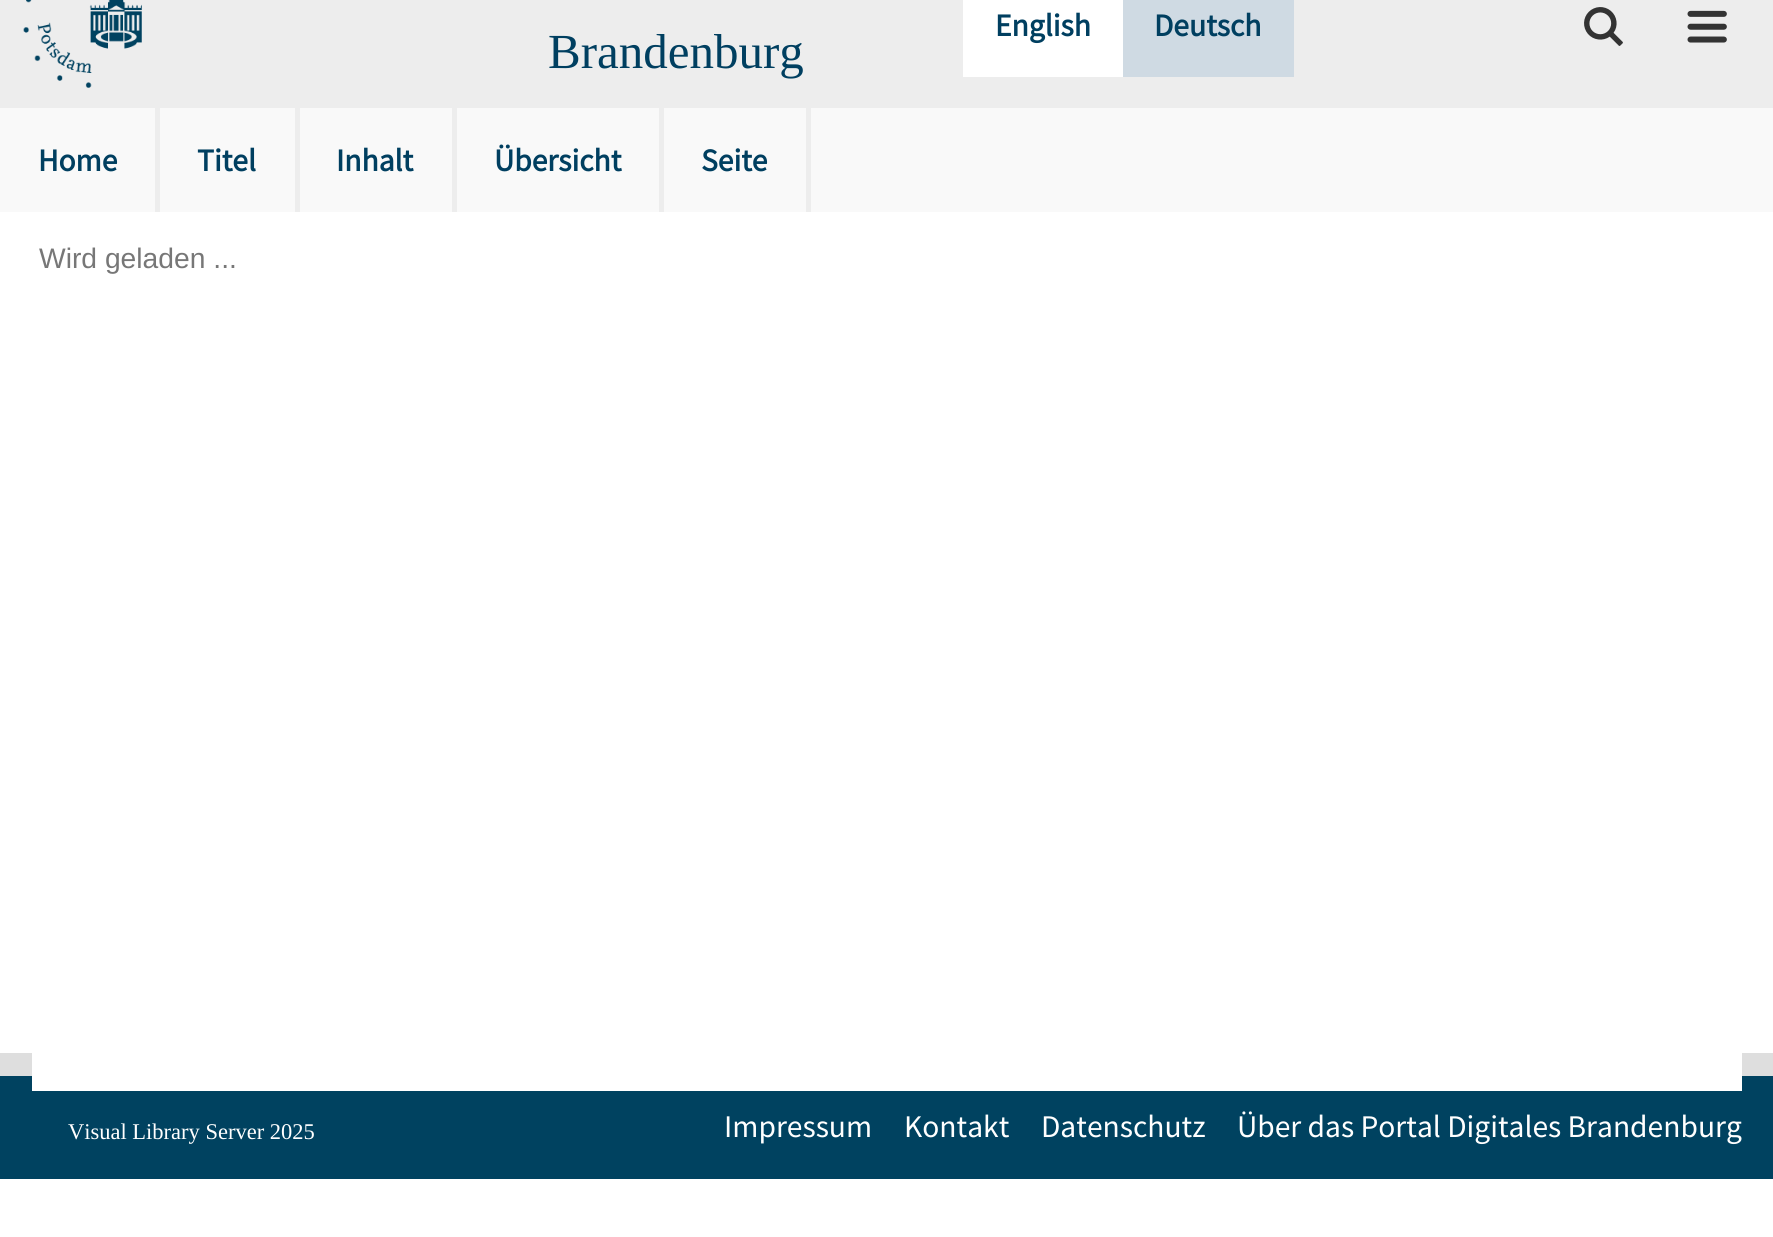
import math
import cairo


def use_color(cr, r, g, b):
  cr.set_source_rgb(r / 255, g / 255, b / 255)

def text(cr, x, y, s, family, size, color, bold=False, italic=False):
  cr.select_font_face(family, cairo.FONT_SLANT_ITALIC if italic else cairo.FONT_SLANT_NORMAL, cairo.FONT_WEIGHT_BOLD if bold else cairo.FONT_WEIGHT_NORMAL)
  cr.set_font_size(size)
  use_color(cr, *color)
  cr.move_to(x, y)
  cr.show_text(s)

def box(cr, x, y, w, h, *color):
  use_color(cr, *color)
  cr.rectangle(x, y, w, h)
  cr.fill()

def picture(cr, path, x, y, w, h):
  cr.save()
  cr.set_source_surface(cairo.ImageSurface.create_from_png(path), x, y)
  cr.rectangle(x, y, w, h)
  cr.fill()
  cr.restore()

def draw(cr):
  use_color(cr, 255, 255, 255)
  cr.paint()
  box(cr, 0, 0, 1773, 108, 237, 237, 237)
  picture(cr, "img_01.png", 23, 0, 119, 88)
  box(cr, 963, 0, 160, 77, 255, 255, 255)
  box(cr, 1123, 0, 171, 77, 207, 218, 227)
  picture(cr, "img_02.png", 1584, 7, 39, 39)
  picture(cr, "img_03.png", 1687, 10, 40, 33)
  box(cr, 0, 108, 1773, 104, 249, 249, 249)
  box(cr, 155, 108, 5, 104, 237, 237, 237)
  box(cr, 295, 108, 5, 104, 237, 237, 237)
  box(cr, 452, 108, 5, 104, 237, 237, 237)
  box(cr, 659, 108, 5, 104, 237, 237, 237)
  box(cr, 806, 108, 5, 104, 237, 237, 237)
  box(cr, 0, 1076, 1773, 103, 0, 66, 96)
  box(cr, 0, 1053, 1773, 23, 222, 222, 222)
  box(cr, 32, 1053, 1710, 38, 255, 255, 255)
  text(cr, 995, 36, "English", "Source Sans Pro", 31.5, (0, 63, 96), bold=True)
  text(cr, 1154, 36, "Deutsch", "Source Sans Pro", 31.5, (0, 63, 96), bold=True)
  text(cr, 548, 68, "Brandenburg", "Liberation Serif", 49, (0, 63, 96))
  text(cr, 38, 171, "Home", "Source Sans Pro", 31.5, (0, 63, 96), bold=True)
  text(cr, 197, 171, "Titel", "Source Sans Pro", 31.5, (0, 63, 96), bold=True)
  text(cr, 336, 171, "Inhalt", "Source Sans Pro", 31.5, (0, 63, 96), bold=True)
  text(cr, 494, 171, "Übersicht", "Source Sans Pro", 31.5, (0, 63, 96), bold=True)
  text(cr, 701, 171, "Seite", "Source Sans Pro", 31.5, (0, 63, 96), bold=True)
  text(cr, 39, 268, "Wird geladen ...", "Liberation Sans", 28.25, (119, 119, 119))
  text(cr, 68, 1139, "Visual Library Server 2025", "Liberation Serif", 22.5, (255, 255, 255))
  text(cr, 724, 1137, "Impressum", "Source Sans Pro", 31.5, (255, 255, 255))
  text(cr, 904, 1137, "Kontakt", "Source Sans Pro", 31.5, (255, 255, 255))
  text(cr, 1041, 1137, "Datenschutz", "Source Sans Pro", 31.5, (255, 255, 255))
  text(cr, 1237, 1137, "Über das Portal Digitales Brandenburg", "Source Sans Pro", 31.5, (255, 255, 255))


surface = cairo.ImageSurface(cairo.FORMAT_RGB24, 1773, 1237)
cr = cairo.Context(surface)
options = cairo.FontOptions()
options.set_hint_metrics(cairo.HINT_METRICS_OFF)
options.set_hint_style(cairo.HINT_STYLE_NONE)
cr.set_font_options(options)
cr.set_miter_limit(4)
draw(cr)
surface.write_to_png("out.png")
